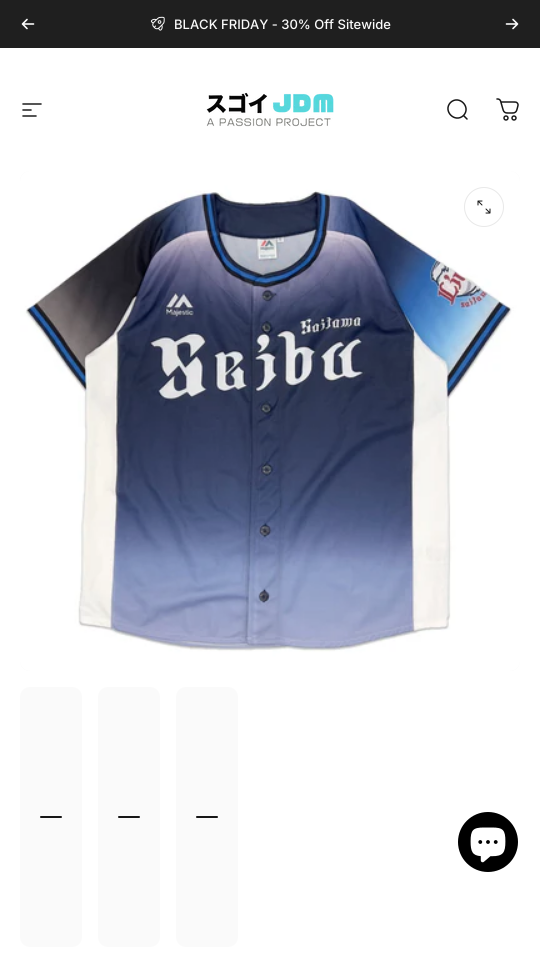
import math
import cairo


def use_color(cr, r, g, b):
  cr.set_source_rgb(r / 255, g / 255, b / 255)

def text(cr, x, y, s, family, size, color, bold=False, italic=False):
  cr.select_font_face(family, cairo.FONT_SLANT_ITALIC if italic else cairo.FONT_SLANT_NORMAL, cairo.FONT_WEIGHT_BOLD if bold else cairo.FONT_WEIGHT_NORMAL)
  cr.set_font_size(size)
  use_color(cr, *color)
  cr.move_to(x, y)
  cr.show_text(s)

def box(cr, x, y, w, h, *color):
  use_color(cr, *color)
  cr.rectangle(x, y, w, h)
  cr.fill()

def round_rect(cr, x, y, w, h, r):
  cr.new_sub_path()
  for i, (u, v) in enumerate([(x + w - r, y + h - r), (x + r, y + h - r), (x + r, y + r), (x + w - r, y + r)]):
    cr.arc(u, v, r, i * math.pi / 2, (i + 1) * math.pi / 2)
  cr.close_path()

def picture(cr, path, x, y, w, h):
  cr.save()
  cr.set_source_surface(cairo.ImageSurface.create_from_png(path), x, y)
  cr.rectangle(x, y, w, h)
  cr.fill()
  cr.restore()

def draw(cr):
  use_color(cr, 255, 255, 255)
  cr.paint()
  box(cr, 0, 0, 540, 48, 31, 31, 31)
  cr.new_path()
  cr.move_to(27, 19.5)
  cr.line_to(22.5, 24)
  cr.move_to(22.5, 24)
  cr.line_to(27, 28.5)
  cr.move_to(22.5, 24)
  cr.line_to(33.5, 24)
  use_color(cr, 250, 250, 250)
  cr.set_line_width(1.6)
  cr.set_line_cap(cairo.LINE_CAP_ROUND)
  cr.set_line_join(cairo.LINE_JOIN_ROUND)
  cr.stroke()
  picture(cr, "img_01.png", 150, 16, 15, 15)
  cr.new_path()
  cr.move_to(506.5, 24)
  cr.line_to(517.5, 24)
  cr.move_to(517.5, 24)
  cr.line_to(513, 19.5)
  cr.move_to(517.5, 24)
  cr.line_to(513, 28.5)
  cr.stroke()
  cr.new_path()
  cr.move_to(23, 104)
  cr.line_to(41, 104)
  cr.move_to(23, 110)
  cr.line_to(31, 110)
  cr.move_to(23, 116)
  cr.line_to(36, 116)
  use_color(cr, 23, 23, 23)
  cr.set_line_width(1.5)
  cr.set_line_join(cairo.LINE_JOIN_MITER)
  cr.stroke()
  picture(cr, "img_02.png", 206, 92, 128, 35)
  cr.new_path()
  cr.move_to(467, 119)
  cr.line_to(463.5, 115.5)
  cr.move_to(463.5, 115.5)
  cr.curve_to(471.5, 107, 459, 94.5, 450.5, 102.5)
  cr.curve_to(442.5, 111, 455, 123.5, 463.5, 115.5)
  cr.close_path()
  cr.stroke()
  picture(cr, "img_03.png", 496, 98, 23, 23)
  use_color(cr, 250, 250, 250)
  round_rect(cr, 20, 171, 500, 500, 10)
  cr.fill()
  picture(cr, "img_04.png", 20, 171, 500, 500)
  cr.arc(484, 207, 19.5, 0, 2 * math.pi)
  use_color(cr, 232, 232, 232)
  cr.set_line_width(1)
  cr.set_line_cap(cairo.LINE_CAP_BUTT)
  cr.stroke()
  picture(cr, "img_05.png", 477, 200, 14, 14)
  use_color(cr, 250, 250, 250)
  round_rect(cr, 20, 687, 62, 260, 10)
  cr.fill()
  use_color(cr, 23, 23, 23)
  round_rect(cr, 40, 816, 22, 2, 1)
  cr.fill()
  use_color(cr, 250, 250, 250)
  round_rect(cr, 98, 687, 62, 260, 10)
  cr.fill()
  use_color(cr, 23, 23, 23)
  round_rect(cr, 118, 816, 22, 2, 1)
  cr.fill()
  use_color(cr, 250, 250, 250)
  round_rect(cr, 176, 687, 62, 260, 10)
  cr.fill()
  use_color(cr, 23, 23, 23)
  round_rect(cr, 196, 816, 22, 2, 1)
  cr.fill()
  use_color(cr, 0, 0, 0)
  cr.arc(488, 842, 30, 0, 2 * math.pi)
  cr.fill()
  picture(cr, "img_06.png", 470, 827, 36, 36)
  text(cr, 174, 29, "BLACK FRIDAY - 30% Off Sitewide", "Inter Medium", 13, (250, 250, 250))


surface = cairo.ImageSurface(cairo.FORMAT_RGB24, 540, 957)
cr = cairo.Context(surface)
options = cairo.FontOptions()
options.set_hint_metrics(cairo.HINT_METRICS_OFF)
options.set_hint_style(cairo.HINT_STYLE_NONE)
cr.set_font_options(options)
cr.set_miter_limit(4)
draw(cr)
surface.write_to_png("out.png")
